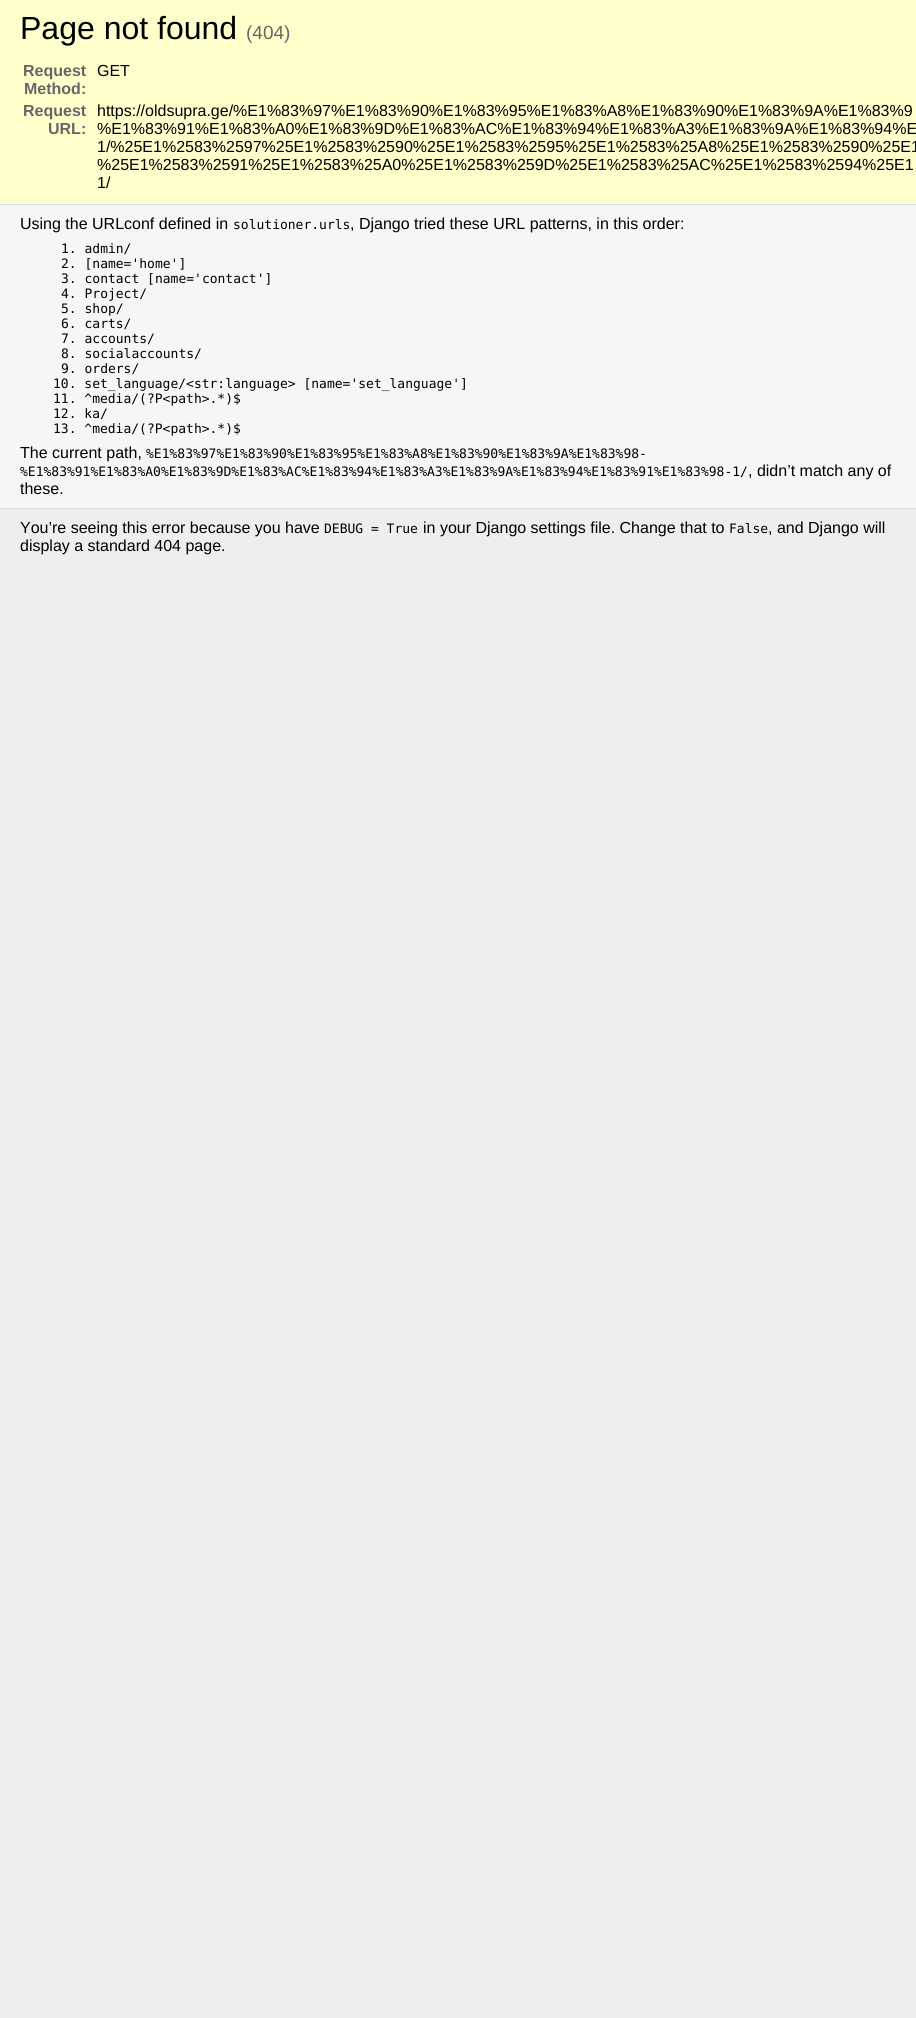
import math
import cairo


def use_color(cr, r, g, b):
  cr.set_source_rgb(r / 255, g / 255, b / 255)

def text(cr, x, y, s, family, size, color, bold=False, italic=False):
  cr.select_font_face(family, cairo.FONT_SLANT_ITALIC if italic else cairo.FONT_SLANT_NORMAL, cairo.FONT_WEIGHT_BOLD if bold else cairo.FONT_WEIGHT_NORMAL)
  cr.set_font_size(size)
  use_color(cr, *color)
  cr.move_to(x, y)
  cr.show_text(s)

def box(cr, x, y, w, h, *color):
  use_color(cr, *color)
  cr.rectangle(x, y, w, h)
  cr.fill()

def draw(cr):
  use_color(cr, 238, 238, 238)
  cr.paint()
  box(cr, 0, 0, 916, 204, 255, 255, 204)
  box(cr, 0, 204, 916, 1, 221, 221, 221)
  box(cr, 0, 205, 916, 303, 246, 246, 246)
  box(cr, 0, 508, 916, 1, 221, 221, 221)
  text(cr, 20, 39, "Page not found", "Liberation Sans", 32, (0, 0, 0))
  text(cr, 246, 39, "(404)", "Liberation Sans", 19, (102, 102, 102))
  text(cr, 23, 76, "Request", "Liberation Sans", 16, (102, 102, 102), bold=True)
  text(cr, 24, 94, "Method:", "Liberation Sans", 16, (102, 102, 102), bold=True)
  text(cr, 97, 76, "GET", "Liberation Sans", 16, (0, 0, 0))
  text(cr, 23, 116, "Request", "Liberation Sans", 16, (102, 102, 102), bold=True)
  text(cr, 48, 134, "URL:", "Liberation Sans", 16, (102, 102, 102), bold=True)
  text(cr, 97, 116, "https://oldsupra.ge/%E1%83%97%E1%83%90%E1%83%95%E1%83%A8%E1%83%90%E1%83%9A%E1%83%9", "Liberation Sans", 16, (0, 0, 0))
  text(cr, 97, 134, "%E1%83%91%E1%83%A0%E1%83%9D%E1%83%AC%E1%83%94%E1%83%A3%E1%83%9A%E1%83%94%E", "Liberation Sans", 16, (0, 0, 0))
  text(cr, 97, 152, "1/%25E1%2583%2597%25E1%2583%2590%25E1%2583%2595%25E1%2583%25A8%25E1%2583%2590%25E1", "Liberation Sans", 16, (0, 0, 0))
  text(cr, 97, 170, "%25E1%2583%2591%25E1%2583%25A0%25E1%2583%259D%25E1%2583%25AC%25E1%2583%2594%25E1", "Liberation Sans", 16, (0, 0, 0))
  text(cr, 97, 188, "1/", "Liberation Sans", 16, (0, 0, 0))
  text(cr, 20, 229, "Using the URLconf defined in", "Liberation Sans", 16, (0, 0, 0))
  text(cr, 233, 229, "solutioner.urls", "DejaVu Sans Mono", 13, (0, 0, 0))
  text(cr, 350, 229, ", Django tried these URL patterns, in this order:", "Liberation Sans", 16, (0, 0, 0))
  text(cr, 61, 253, "1. admin/", "DejaVu Sans Mono", 13, (0, 0, 0))
  text(cr, 61, 268, "2. [name='home']", "DejaVu Sans Mono", 13, (0, 0, 0))
  text(cr, 61, 283, "3. contact [name='contact']", "DejaVu Sans Mono", 13, (0, 0, 0))
  text(cr, 61, 298, "4. Project/", "DejaVu Sans Mono", 13, (0, 0, 0))
  text(cr, 61, 313, "5. shop/", "DejaVu Sans Mono", 13, (0, 0, 0))
  text(cr, 61, 328, "6. carts/", "DejaVu Sans Mono", 13, (0, 0, 0))
  text(cr, 61, 343, "7. accounts/", "DejaVu Sans Mono", 13, (0, 0, 0))
  text(cr, 61, 358, "8. socialaccounts/", "DejaVu Sans Mono", 13, (0, 0, 0))
  text(cr, 61, 373, "9. orders/", "DejaVu Sans Mono", 13, (0, 0, 0))
  text(cr, 53, 388, "10. set_language/<str:language> [name='set_language']", "DejaVu Sans Mono", 13, (0, 0, 0))
  text(cr, 53, 403, "11. ^media/(?P<path>.*)$", "DejaVu Sans Mono", 13, (0, 0, 0))
  text(cr, 53, 418, "12. ka/", "DejaVu Sans Mono", 13, (0, 0, 0))
  text(cr, 53, 433, "13. ^media/(?P<path>.*)$", "DejaVu Sans Mono", 13, (0, 0, 0))
  text(cr, 20, 458, "The current path,", "Liberation Sans", 16, (0, 0, 0))
  text(cr, 146, 458, "%E1%83%97%E1%83%90%E1%83%95%E1%83%A8%E1%83%90%E1%83%9A%E1%83%98-", "DejaVu Sans Mono", 13, (0, 0, 0))
  text(cr, 20, 476, "%E1%83%91%E1%83%A0%E1%83%9D%E1%83%AC%E1%83%94%E1%83%A3%E1%83%9A%E1%83%94%E1%83%91%E1%83%98-1/", "DejaVu Sans Mono", 13, (0, 0, 0))
  text(cr, 748, 476, ", didn’t match any of", "Liberation Sans", 16, (0, 0, 0))
  text(cr, 20, 494, "these.", "Liberation Sans", 16, (0, 0, 0))
  text(cr, 20, 533, "You’re seeing this error because you have", "Liberation Sans", 16, (0, 0, 0))
  text(cr, 324, 533, "DEBUG = True", "DejaVu Sans Mono", 13, (0, 0, 0))
  text(cr, 423, 533, "in your Django settings file. Change that to", "Liberation Sans", 16, (0, 0, 0))
  text(cr, 729, 533, "False", "DejaVu Sans Mono", 13, (0, 0, 0))
  text(cr, 768, 533, ", and Django will", "Liberation Sans", 16, (0, 0, 0))
  text(cr, 20, 551, "display a standard 404 page.", "Liberation Sans", 16, (0, 0, 0))


surface = cairo.ImageSurface(cairo.FORMAT_RGB24, 916, 2018)
cr = cairo.Context(surface)
options = cairo.FontOptions()
options.set_hint_metrics(cairo.HINT_METRICS_OFF)
options.set_hint_style(cairo.HINT_STYLE_NONE)
cr.set_font_options(options)
cr.set_miter_limit(4)
draw(cr)
surface.write_to_png("out.png")
